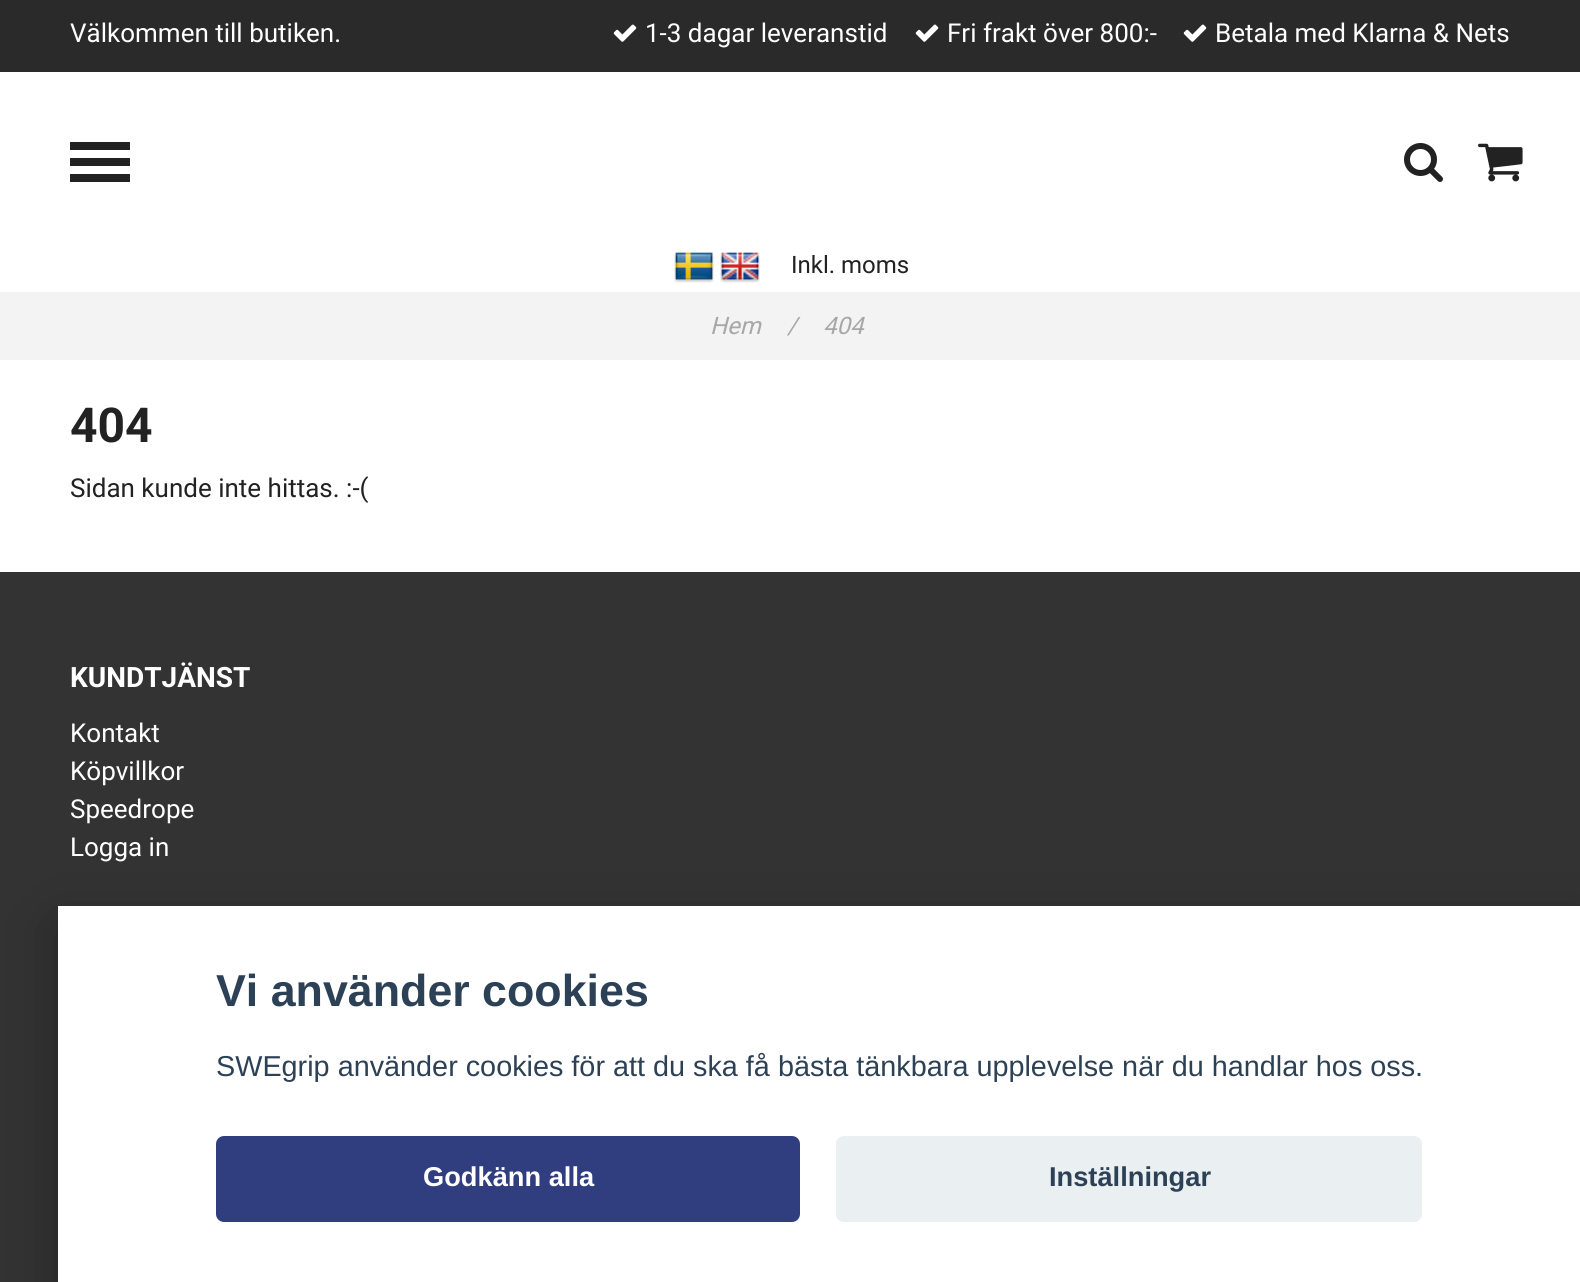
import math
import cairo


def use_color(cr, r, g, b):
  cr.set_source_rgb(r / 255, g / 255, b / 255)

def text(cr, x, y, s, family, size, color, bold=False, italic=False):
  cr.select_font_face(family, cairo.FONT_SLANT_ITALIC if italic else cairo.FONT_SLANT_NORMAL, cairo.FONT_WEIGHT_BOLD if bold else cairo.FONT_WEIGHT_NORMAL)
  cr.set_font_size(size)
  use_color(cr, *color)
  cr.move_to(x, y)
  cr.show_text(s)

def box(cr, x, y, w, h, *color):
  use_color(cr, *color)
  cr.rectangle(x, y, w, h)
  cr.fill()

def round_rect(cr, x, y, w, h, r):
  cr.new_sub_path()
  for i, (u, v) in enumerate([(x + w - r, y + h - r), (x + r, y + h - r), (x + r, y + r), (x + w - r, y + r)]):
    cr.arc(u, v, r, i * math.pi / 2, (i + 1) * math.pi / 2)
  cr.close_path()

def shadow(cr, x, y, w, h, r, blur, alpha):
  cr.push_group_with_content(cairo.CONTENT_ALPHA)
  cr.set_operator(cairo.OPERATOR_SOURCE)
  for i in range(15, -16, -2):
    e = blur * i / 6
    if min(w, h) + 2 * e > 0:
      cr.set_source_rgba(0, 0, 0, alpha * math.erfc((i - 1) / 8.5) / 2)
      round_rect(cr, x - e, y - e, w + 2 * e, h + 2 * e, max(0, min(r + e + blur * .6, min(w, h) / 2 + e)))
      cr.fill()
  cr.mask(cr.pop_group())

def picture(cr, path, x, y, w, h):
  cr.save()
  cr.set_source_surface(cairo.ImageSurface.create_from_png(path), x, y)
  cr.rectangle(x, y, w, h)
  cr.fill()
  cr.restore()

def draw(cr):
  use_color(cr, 255, 255, 255)
  cr.paint()
  box(cr, 0, 0, 1580, 72, 42, 42, 42)
  picture(cr, "img_01.png", 613, 24, 24, 18)
  picture(cr, "img_01.png", 915, 24, 24, 18)
  picture(cr, "img_01.png", 1183, 24, 24, 18)
  box(cr, 70, 158, 60, 8, 34, 34, 34)
  box(cr, 70, 142, 60, 8, 34, 34, 34)
  box(cr, 70, 174, 60, 8, 34, 34, 34)
  picture(cr, "img_02.png", 1404, 143, 39, 39)
  picture(cr, "img_03.png", 1478, 143, 45, 39)
  picture(cr, "img_04.png", 674, 252, 40, 31)
  picture(cr, "img_05.png", 720, 252, 40, 31)
  box(cr, 0, 292, 1580, 68, 243, 243, 243)
  box(cr, 0, 572, 1580, 710, 51, 51, 51)
  use_color(cr, 2, 2, 3)
  shadow(cr, 58, 926, 1522, 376, 0, 30, 0.28)
  box(cr, 58, 906, 1522, 376, 255, 255, 255)
  use_color(cr, 48, 62, 128)
  round_rect(cr, 216, 1136, 584, 86, 8)
  cr.fill()
  use_color(cr, 234, 239, 242)
  round_rect(cr, 836, 1136, 586, 86, 8)
  cr.fill()
  text(cr, 70, 42, "Välkommen till butiken.", "Roboto", 26, (255, 255, 255))
  text(cr, 645, 42, "1-3 dagar leveranstid", "Roboto", 26, (255, 255, 255))
  text(cr, 947, 42, "Fri frakt över 800:-", "Roboto", 26, (255, 255, 255))
  text(cr, 1215, 42, "Betala med Klarna & Nets", "Roboto", 26, (255, 255, 255))
  text(cr, 791, 273, "Inkl. moms", "Roboto", 24, (34, 34, 34))
  text(cr, 710, 334, "Hem", "Roboto", 24, (167, 167, 167), italic=True)
  text(cr, 787, 334, "/", "Roboto", 24, (167, 167, 167), italic=True)
  text(cr, 823, 334, "404", "Roboto", 24, (167, 167, 167), italic=True)
  text(cr, 70, 442, "404", "Roboto", 48, (34, 34, 34), bold=True)
  text(cr, 70, 497, "Sidan kunde inte hittas. :-(", "Roboto", 26, (34, 34, 34))
  text(cr, 70, 687, "KUNDTJÄNST", "Roboto", 28, (255, 255, 255), bold=True)
  text(cr, 70, 742, "Kontakt", "Roboto", 26, (255, 255, 255))
  text(cr, 70, 780, "Köpvillkor", "Roboto", 26, (255, 255, 255))
  text(cr, 70, 818, "Speedrope", "Roboto", 26, (255, 255, 255))
  text(cr, 70, 856, "Logga in", "Roboto", 26, (255, 255, 255))
  text(cr, 216, 1006, "Vi använder cookies", "Liberation Sans", 44.75, (45, 65, 86), bold=True)
  text(cr, 216, 1076, "SWEgrip använder cookies för att du ska få bästa tänkbara upplevelse när du handlar hos oss.", "Liberation Sans", 28.8, (45, 65, 86))
  text(cr, 423, 1186, "Godkänn alla", "Liberation Sans", 27.25, (255, 255, 255), bold=True)
  text(cr, 1049, 1186, "Inställningar", "Liberation Sans", 27.25, (45, 65, 86), bold=True)


surface = cairo.ImageSurface(cairo.FORMAT_RGB24, 1580, 1282)
cr = cairo.Context(surface)
options = cairo.FontOptions()
options.set_hint_metrics(cairo.HINT_METRICS_OFF)
options.set_hint_style(cairo.HINT_STYLE_NONE)
cr.set_font_options(options)
cr.set_miter_limit(4)
draw(cr)
surface.write_to_png("out.png")
